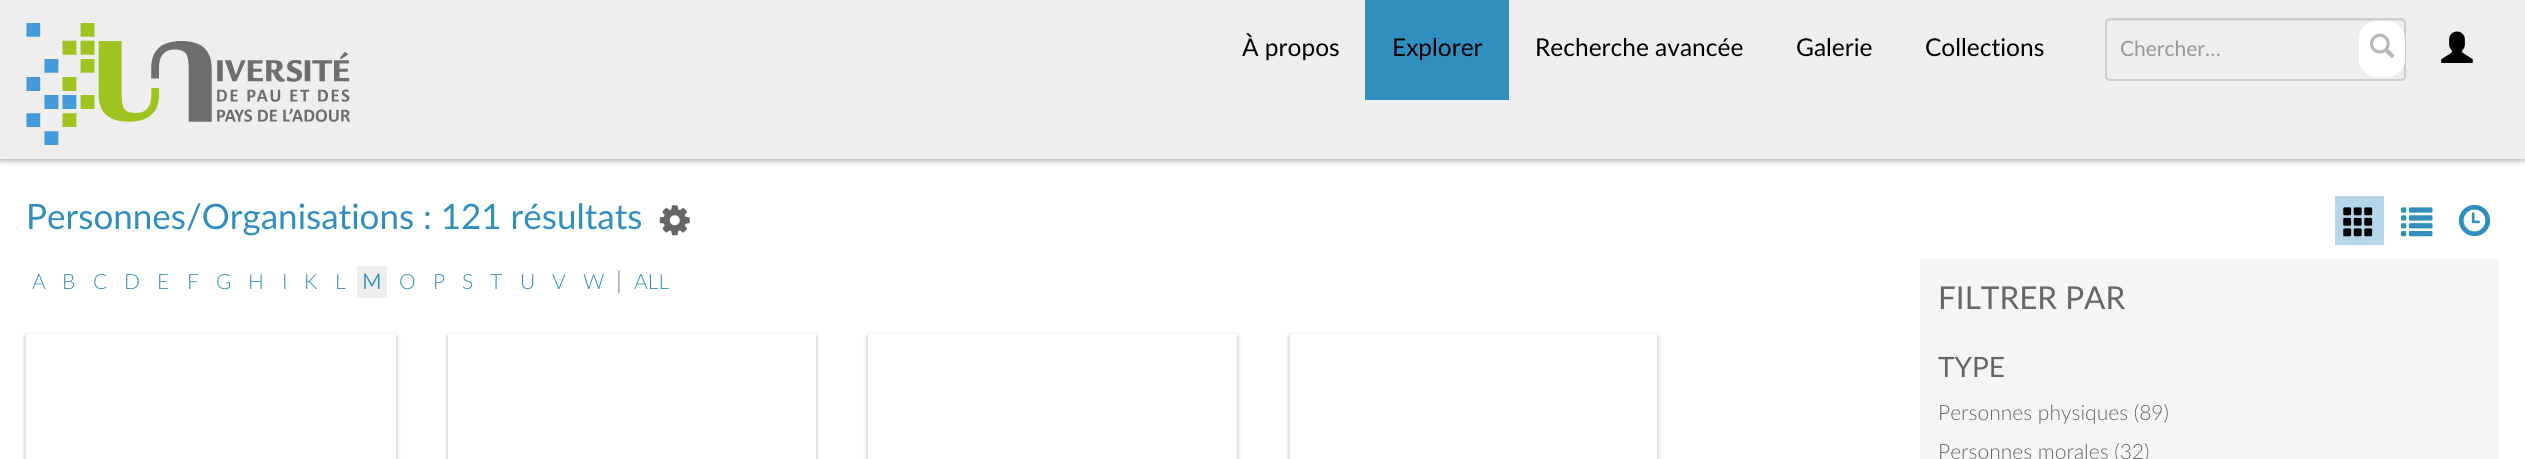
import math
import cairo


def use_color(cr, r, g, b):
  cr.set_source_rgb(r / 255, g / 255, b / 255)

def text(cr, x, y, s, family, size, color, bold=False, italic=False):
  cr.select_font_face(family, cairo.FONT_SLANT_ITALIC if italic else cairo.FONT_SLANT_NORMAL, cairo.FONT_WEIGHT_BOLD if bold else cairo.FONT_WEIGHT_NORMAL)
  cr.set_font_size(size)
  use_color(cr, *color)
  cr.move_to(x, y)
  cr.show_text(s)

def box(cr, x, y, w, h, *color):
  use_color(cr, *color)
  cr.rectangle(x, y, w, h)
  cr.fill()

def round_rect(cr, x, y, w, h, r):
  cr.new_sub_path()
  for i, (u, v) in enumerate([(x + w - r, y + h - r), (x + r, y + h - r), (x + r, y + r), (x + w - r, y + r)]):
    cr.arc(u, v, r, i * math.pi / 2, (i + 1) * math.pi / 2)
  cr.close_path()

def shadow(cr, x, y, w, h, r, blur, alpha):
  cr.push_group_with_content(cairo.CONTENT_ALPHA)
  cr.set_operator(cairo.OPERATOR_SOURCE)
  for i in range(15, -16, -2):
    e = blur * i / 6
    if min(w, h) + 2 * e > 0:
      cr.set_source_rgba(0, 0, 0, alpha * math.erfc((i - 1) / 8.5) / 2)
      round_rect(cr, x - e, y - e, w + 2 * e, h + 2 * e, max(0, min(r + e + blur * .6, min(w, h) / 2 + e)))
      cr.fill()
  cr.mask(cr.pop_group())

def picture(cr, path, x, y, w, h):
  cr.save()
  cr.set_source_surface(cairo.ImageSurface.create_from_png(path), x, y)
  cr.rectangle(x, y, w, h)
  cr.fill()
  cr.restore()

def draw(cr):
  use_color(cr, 255, 255, 255)
  cr.paint()
  use_color(cr, 0, 0, 0)
  shadow(cr, 0, 2, 2525, 159, 0, 2.5, 0.3)
  box(cr, 0, 0, 2525, 159, 238, 238, 238)
  picture(cr, "img_01.png", 26, 23, 324, 122)
  box(cr, 1365, 0, 144, 100, 49, 143, 191)
  use_color(cr, 220, 220, 220)
  cr.new_path()
  cr.move_to(2110, 21)
  cr.line_to(2401, 21)
  cr.curve_to(2403, 21, 2404, 23, 2404, 24)
  cr.line_to(2404, 78)
  cr.curve_to(2405, 77, 2405, 76, 2405, 75)
  cr.line_to(2405, 23)
  cr.curve_to(2405, 21, 2403, 19, 2401, 19)
  cr.line_to(2111, 19)
  cr.curve_to(2109, 19, 2107, 21, 2107, 23)
  cr.line_to(2107, 24)
  cr.curve_to(2107, 23, 2109, 21, 2110, 21)
  cr.close_path()
  cr.fill()
  round_rect(cr, 2106, 19, 299, 61, 4)
  use_color(cr, 204, 204, 204)
  cr.stroke()
  use_color(cr, 255, 255, 255)
  round_rect(cr, 2359, 21, 46, 56, 18)
  cr.fill()
  picture(cr, "img_02.png", 2370, 33, 25, 25)
  picture(cr, "img_03.png", 2441, 31, 32, 32)
  picture(cr, "img_04.png", 659, 205, 31, 31)
  box(cr, 357, 266, 30, 32, 237, 237, 237)
  use_color(cr, 0, 0, 0)
  shadow(cr, 26, 336, 370, 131, 0, 2.5, 0.3)
  box(cr, 26, 334, 370, 125, 255, 255, 255)
  use_color(cr, 0, 0, 0)
  shadow(cr, 448, 336, 368, 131, 0, 2.5, 0.3)
  box(cr, 448, 334, 368, 125, 255, 255, 255)
  use_color(cr, 0, 0, 0)
  shadow(cr, 868, 336, 369, 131, 0, 2.5, 0.3)
  box(cr, 868, 334, 369, 125, 255, 255, 255)
  use_color(cr, 0, 0, 0)
  shadow(cr, 1290, 336, 367, 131, 0, 2.5, 0.3)
  box(cr, 1290, 334, 367, 125, 255, 255, 255)
  box(cr, 2335, 196, 49, 49, 180, 214, 232)
  picture(cr, "img_05.png", 2343, 207, 30, 30)
  picture(cr, "img_06.png", 2401, 207, 32, 30)
  picture(cr, "img_07.png", 2458, 204, 33, 33)
  box(cr, 1920, 259, 579, 200, 245, 245, 245)
  text(cr, 1242, 56, "À propos", "Lato", 24.5, (0, 0, 0))
  text(cr, 1392, 56, "Explorer", "Lato", 24.5, (0, 0, 0))
  text(cr, 1535, 56, "Recherche avancée", "Lato", 24.5, (0, 0, 0))
  text(cr, 1796, 56, "Galerie", "Lato", 24.5, (0, 0, 0))
  text(cr, 1925, 56, "Collections", "Lato", 24.5, (0, 0, 0))
  text(cr, 2120, 56, "Chercher…", "Lato", 21, (153, 153, 153))
  text(cr, 26, 229, "Personnes/Organisations : 121 résultats", "Lato", 35, (49, 143, 191))
  text(cr, 32, 289, "A", "Lato Light", 21, (49, 143, 191))
  text(cr, 62, 289, "B", "Lato Light", 21, (49, 143, 191))
  text(cr, 93, 289, "C", "Lato Light", 21, (49, 143, 191))
  text(cr, 124, 289, "D", "Lato Light", 21, (49, 143, 191))
  text(cr, 157, 289, "E", "Lato Light", 21, (49, 143, 191))
  text(cr, 187, 289, "F", "Lato Light", 21, (49, 143, 191))
  text(cr, 216, 289, "G", "Lato Light", 21, (49, 143, 191))
  text(cr, 248, 289, "H", "Lato Light", 21, (49, 143, 191))
  text(cr, 282, 289, "I", "Lato Light", 21, (49, 143, 191))
  text(cr, 304, 289, "K", "Lato Light", 21, (49, 143, 191))
  text(cr, 335, 289, "L", "Lato Light", 21, (49, 143, 191))
  text(cr, 362, 289, "M", "Lato", 21, (49, 143, 191), bold=True)
  text(cr, 399, 289, "O", "Lato Light", 21, (49, 143, 191))
  text(cr, 433, 289, "P", "Lato Light", 21, (49, 143, 191))
  text(cr, 462, 289, "S", "Lato Light", 21, (49, 143, 191))
  text(cr, 490, 289, "T", "Lato Light", 21, (49, 143, 191))
  text(cr, 520, 289, "U", "Lato Light", 21, (49, 143, 191))
  text(cr, 552, 289, "V", "Lato Light", 21, (49, 143, 191))
  text(cr, 583, 289, "W", "Lato Light", 21, (49, 143, 191))
  text(cr, 616, 289, "|", "Lato Light", 24.5, (109, 110, 109))
  text(cr, 634, 289, "ALL", "Lato Light", 21, (49, 143, 191))
  text(cr, 1938, 309, "FILTRER PAR", "Lato", 31.5, (102, 102, 102))
  text(cr, 1938, 377, "TYPE", "Lato", 28, (102, 102, 102))
  text(cr, 1938, 420, "Personnes physiques (89)", "Lato Light", 21, (102, 102, 102))
  text(cr, 1938, 459, "Personnes morales (32)", "Lato Light", 21, (102, 102, 102))


surface = cairo.ImageSurface(cairo.FORMAT_RGB24, 2525, 459)
cr = cairo.Context(surface)
options = cairo.FontOptions()
options.set_hint_metrics(cairo.HINT_METRICS_OFF)
options.set_hint_style(cairo.HINT_STYLE_NONE)
cr.set_font_options(options)
cr.set_miter_limit(4)
draw(cr)
surface.write_to_png("out.png")
